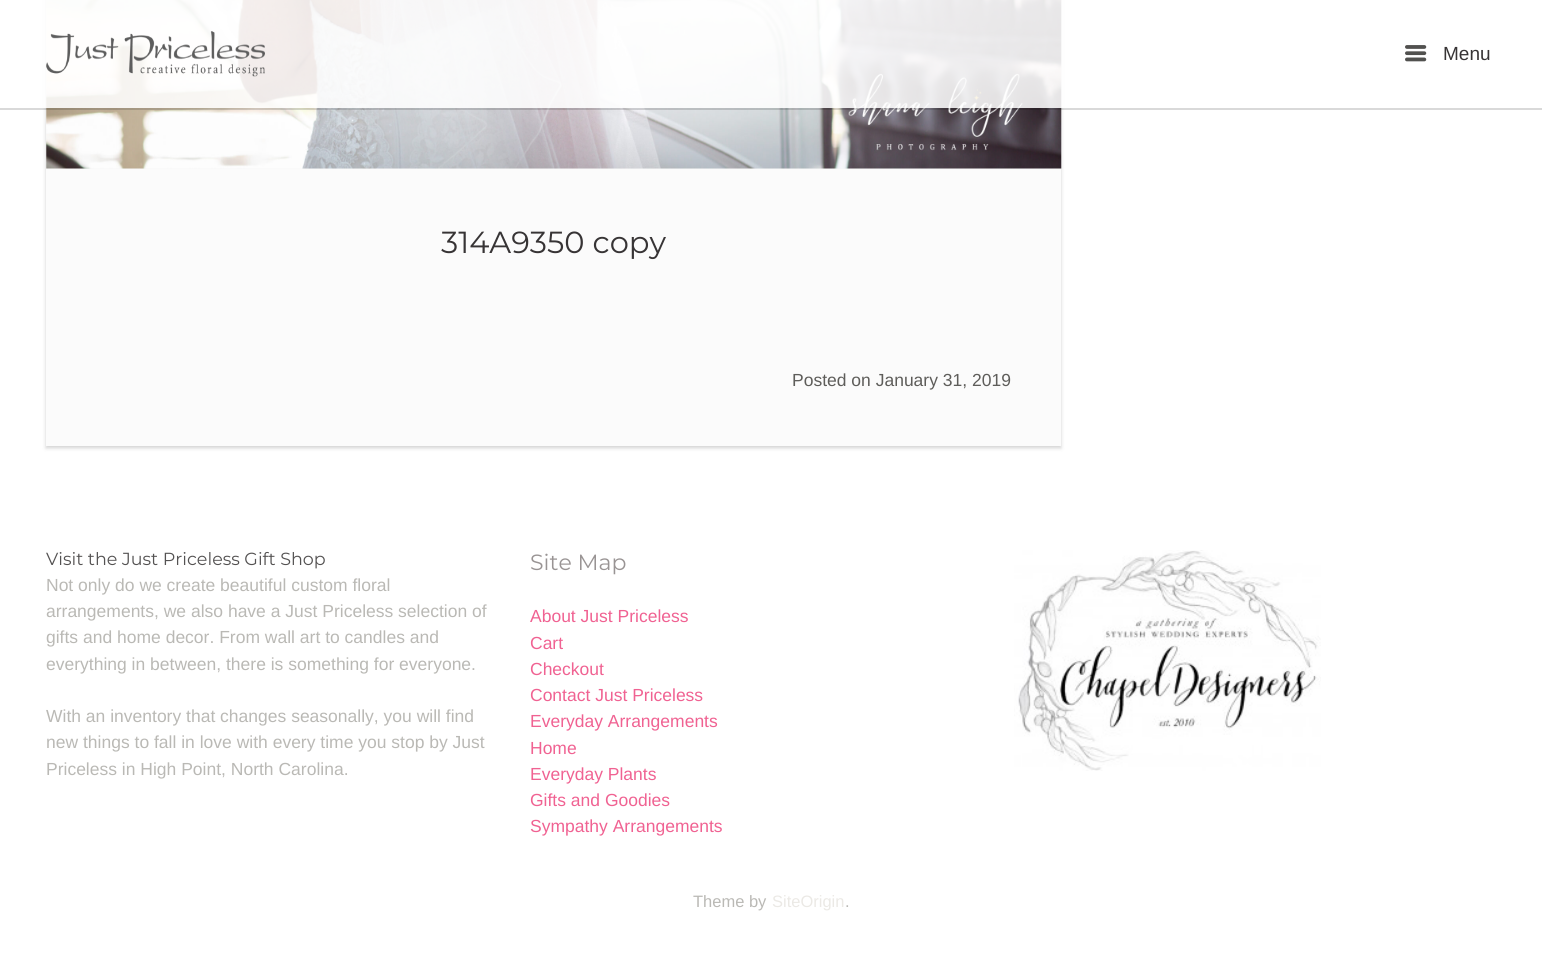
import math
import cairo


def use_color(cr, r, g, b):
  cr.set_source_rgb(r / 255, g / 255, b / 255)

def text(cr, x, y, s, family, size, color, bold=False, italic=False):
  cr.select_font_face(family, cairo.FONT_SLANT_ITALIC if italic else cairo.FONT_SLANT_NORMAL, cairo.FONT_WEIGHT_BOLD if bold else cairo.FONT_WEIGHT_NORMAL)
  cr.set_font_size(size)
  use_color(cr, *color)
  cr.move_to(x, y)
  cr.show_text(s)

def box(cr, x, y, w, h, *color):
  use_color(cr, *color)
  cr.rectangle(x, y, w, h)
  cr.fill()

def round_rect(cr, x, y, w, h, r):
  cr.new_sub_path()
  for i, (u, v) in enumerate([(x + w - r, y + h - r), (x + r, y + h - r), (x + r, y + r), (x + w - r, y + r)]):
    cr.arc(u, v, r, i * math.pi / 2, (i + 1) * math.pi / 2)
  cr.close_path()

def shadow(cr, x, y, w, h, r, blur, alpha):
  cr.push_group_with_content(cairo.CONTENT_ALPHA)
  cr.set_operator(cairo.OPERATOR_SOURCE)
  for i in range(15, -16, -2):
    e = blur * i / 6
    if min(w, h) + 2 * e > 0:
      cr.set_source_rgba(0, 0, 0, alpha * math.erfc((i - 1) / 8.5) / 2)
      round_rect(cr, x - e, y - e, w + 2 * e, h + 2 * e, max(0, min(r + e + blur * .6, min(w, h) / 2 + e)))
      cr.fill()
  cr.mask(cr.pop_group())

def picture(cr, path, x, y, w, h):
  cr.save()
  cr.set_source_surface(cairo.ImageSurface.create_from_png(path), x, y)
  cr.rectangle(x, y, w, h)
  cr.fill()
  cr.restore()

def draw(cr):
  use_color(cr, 255, 255, 255)
  cr.paint()
  use_color(cr, 0, 0, 0)
  shadow(cr, 46, -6, 1015, 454, 0, 2, 0.18)
  box(cr, 46, 0, 1015, 169, 247, 247, 247)
  picture(cr, "img_03.png", 46, 0, 1016, 169)
  cr.set_source_rgba(0, 0, 0, 0.15)
  cr.new_path()
  cr.move_to(0, 108)
  cr.line_to(0, 110)
  cr.line_to(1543, 110)
  cr.line_to(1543, 3)
  cr.line_to(1542, 3)
  cr.line_to(1542, 108)
  cr.close_path()
  cr.fill()
  cr.set_source_rgba(1, 1, 1, 0.86)
  cr.rectangle(43, 0, 1021, 108)
  cr.fill()
  picture(cr, "img_01.png", 46, 31, 219, 46)
  picture(cr, "img_02.png", 1405, 45, 22, 17)
  box(cr, 46, 169, 1015, 277, 251, 251, 251)
  picture(cr, "img_04.png", 1014, 550, 307, 221)
  text(cr, 1443, 60, "Menu", "Liberation Sans", 19, (55, 52, 53))
  text(cr, 441, 253, "314A9350 copy", "Montserrat Thin", 30.5, (55, 52, 53))
  text(cr, 792, 386, "Posted on January 31, 2019", "Liberation Sans", 17.5, (94, 93, 90))
  text(cr, 46, 565, "Visit the Just Priceless Gift Shop", "Montserrat Thin", 17.5, (84, 82, 82))
  text(cr, 46, 591, "Not only do we create beautiful custom floral", "Liberation Sans", 17.5, (186, 185, 181))
  text(cr, 46, 617, "arrangements, we also have a Just Priceless selection of", "Liberation Sans", 17.5, (186, 185, 181))
  text(cr, 46, 643, "gifts and home decor. From wall art to candles and", "Liberation Sans", 17.5, (186, 185, 181))
  text(cr, 46, 670, "everything in between, there is something for everyone.", "Liberation Sans", 17.5, (186, 185, 181))
  text(cr, 46, 722, "With an inventory that changes seasonally, you will find", "Liberation Sans", 17.5, (186, 185, 181))
  text(cr, 46, 748, "new things to fall in love with every time you stop by Just", "Liberation Sans", 17.5, (186, 185, 181))
  text(cr, 46, 775, "Priceless in High Point, North Carolina.", "Liberation Sans", 17.5, (186, 185, 181))
  text(cr, 530, 570, "Site Map", "Montserrat Thin", 22, (153, 148, 148))
  text(cr, 530, 622, "About Just Priceless", "Liberation Sans", 17.5, (240, 98, 146))
  text(cr, 530, 649, "Cart", "Liberation Sans", 17.5, (240, 98, 146))
  text(cr, 530, 675, "Checkout", "Liberation Sans", 17.5, (240, 98, 146))
  text(cr, 530, 701, "Contact Just Priceless", "Liberation Sans", 17.5, (240, 98, 146))
  text(cr, 530, 727, "Everyday Arrangements", "Liberation Sans", 17.5, (240, 98, 146))
  text(cr, 530, 754, "Home", "Liberation Sans", 17.5, (240, 98, 146))
  text(cr, 530, 780, "Everyday Plants", "Liberation Sans", 17.5, (240, 98, 146))
  text(cr, 530, 806, "Gifts and Goodies", "Liberation Sans", 17.5, (240, 98, 146))
  text(cr, 530, 832, "Sympathy Arrangements", "Liberation Sans", 17.5, (240, 98, 146))
  text(cr, 693, 907, "Theme by", "Liberation Sans", 16.5, (186, 185, 181))
  text(cr, 772, 907, "SiteOrigin", "Liberation Sans", 16.5, (235, 233, 229))
  text(cr, 845, 907, ".", "Liberation Sans", 16.5, (186, 185, 181))


surface = cairo.ImageSurface(cairo.FORMAT_RGB24, 1542, 965)
cr = cairo.Context(surface)
options = cairo.FontOptions()
options.set_hint_metrics(cairo.HINT_METRICS_OFF)
options.set_hint_style(cairo.HINT_STYLE_NONE)
cr.set_font_options(options)
cr.set_miter_limit(4)
draw(cr)
surface.write_to_png("out.png")
